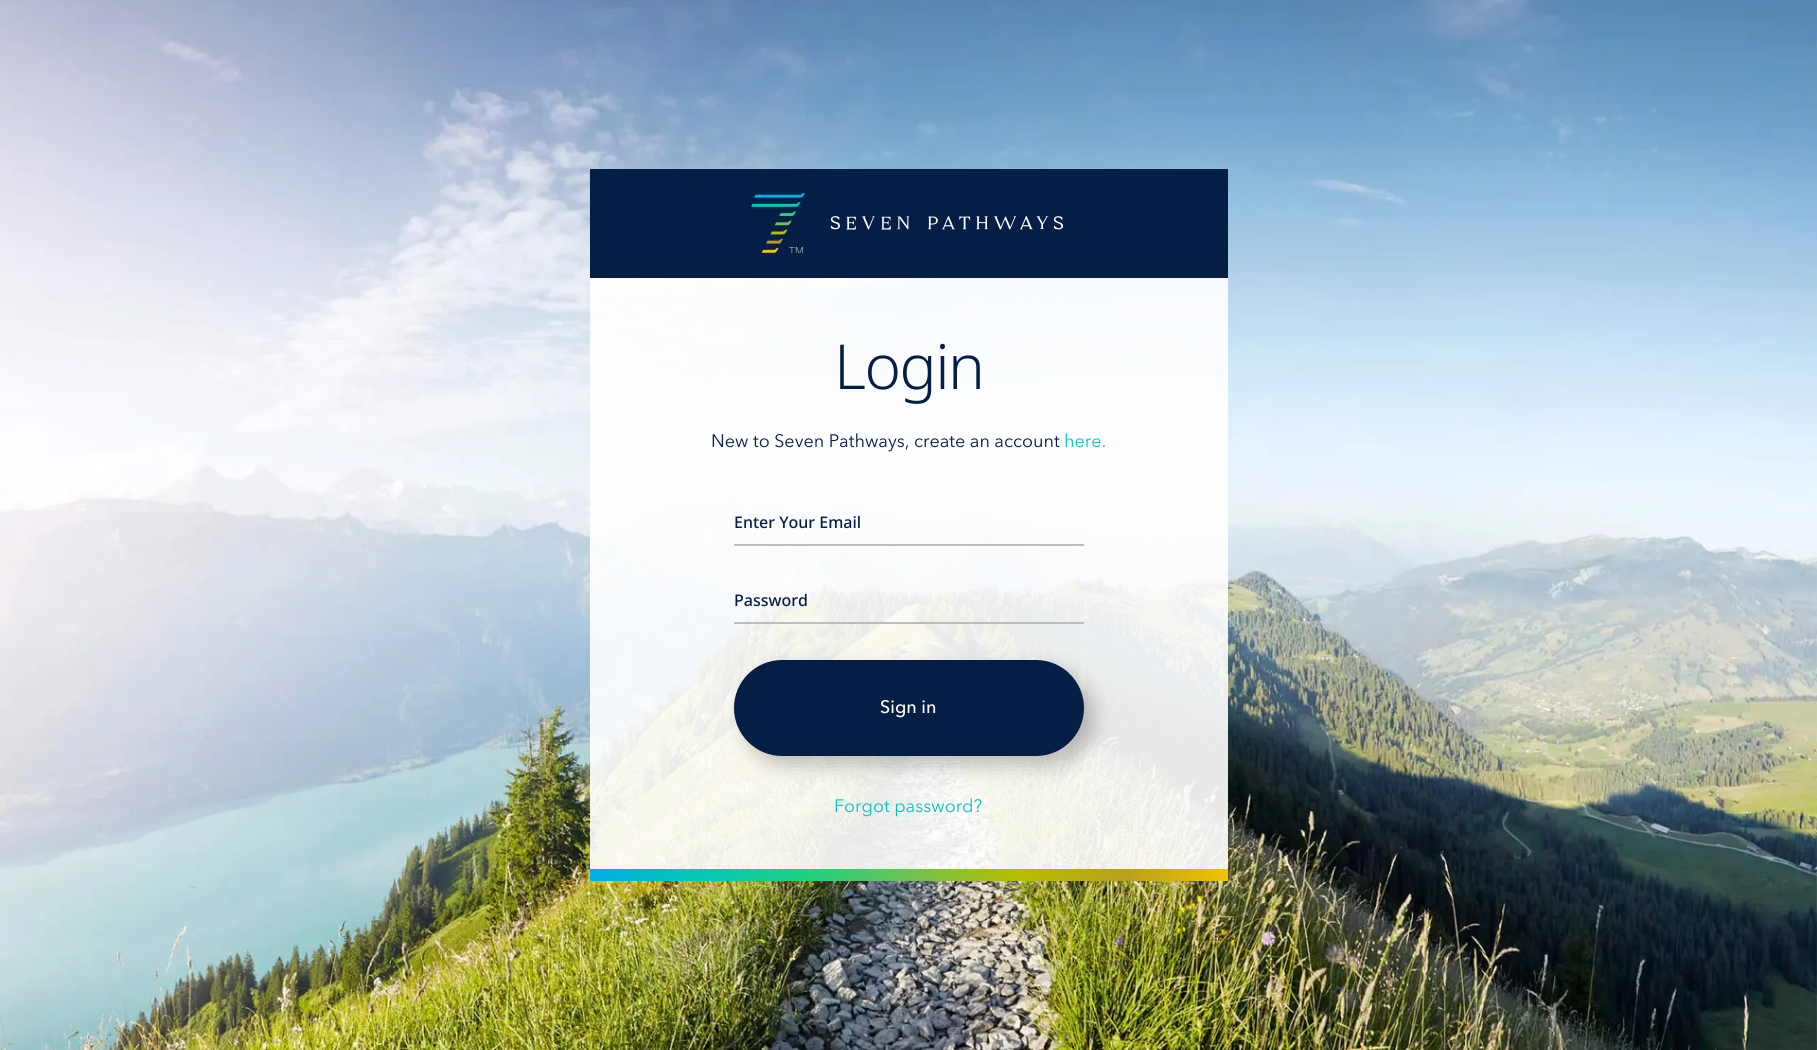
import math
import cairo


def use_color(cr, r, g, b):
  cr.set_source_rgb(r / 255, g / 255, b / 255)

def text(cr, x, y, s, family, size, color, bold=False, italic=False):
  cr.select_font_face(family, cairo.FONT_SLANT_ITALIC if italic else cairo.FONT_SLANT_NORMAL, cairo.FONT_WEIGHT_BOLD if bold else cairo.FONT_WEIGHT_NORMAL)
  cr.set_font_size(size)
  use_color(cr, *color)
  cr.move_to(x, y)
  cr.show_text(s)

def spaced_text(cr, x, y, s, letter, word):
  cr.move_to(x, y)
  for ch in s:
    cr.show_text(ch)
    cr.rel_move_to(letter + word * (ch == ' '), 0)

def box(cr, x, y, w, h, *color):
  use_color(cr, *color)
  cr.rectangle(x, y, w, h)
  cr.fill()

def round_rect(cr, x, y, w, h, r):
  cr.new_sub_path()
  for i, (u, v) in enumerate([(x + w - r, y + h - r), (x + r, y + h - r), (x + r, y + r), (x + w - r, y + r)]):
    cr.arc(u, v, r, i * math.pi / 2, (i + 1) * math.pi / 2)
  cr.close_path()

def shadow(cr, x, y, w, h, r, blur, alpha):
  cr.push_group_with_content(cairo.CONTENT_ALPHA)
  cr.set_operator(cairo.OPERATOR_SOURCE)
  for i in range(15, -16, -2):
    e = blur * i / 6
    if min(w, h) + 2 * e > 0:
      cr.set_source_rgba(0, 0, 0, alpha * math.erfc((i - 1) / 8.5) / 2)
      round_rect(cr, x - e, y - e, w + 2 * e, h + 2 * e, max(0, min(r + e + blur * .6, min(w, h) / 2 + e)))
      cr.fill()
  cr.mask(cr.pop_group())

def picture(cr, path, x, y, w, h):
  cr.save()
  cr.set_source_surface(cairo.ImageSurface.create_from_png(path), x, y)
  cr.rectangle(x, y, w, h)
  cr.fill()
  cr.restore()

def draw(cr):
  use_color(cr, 255, 255, 255)
  cr.paint()
  picture(cr, "img_01.png", 0, 0, 1817, 1050)
  box(cr, 590, 169, 638, 109, 5, 30, 70)
  picture(cr, "img_02.png", 751, 193, 313, 60)
  cr.set_source_rgba(1, 1, 1, 0.9)
  cr.rectangle(590, 278, 638, 591)
  cr.fill()
  box(cr, 734, 544, 350, 2, 189, 189, 189)
  box(cr, 734, 622, 350, 2, 189, 189, 189)
  use_color(cr, 0, 0, 0)
  shadow(cr, 744, 670, 350, 96, 48, 10, 0.24)
  use_color(cr, 5, 30, 70)
  round_rect(cr, 734, 660, 350, 96, 48)
  cr.fill()
  gradient = cairo.LinearGradient(590, 875, 1228, 875)
  gradient.add_color_stop_rgba(0, 0.004, 0.686, 0.882, 1)
  gradient.add_color_stop_rgba(0.17, 0.012, 0.784, 0.718, 1)
  gradient.add_color_stop_rgba(0.34, 0.125, 0.816, 0.502, 1)
  gradient.add_color_stop_rgba(0.5, 0.424, 0.765, 0.322, 1)
  gradient.add_color_stop_rgba(0.67, 0.714, 0.749, 0, 1)
  gradient.add_color_stop_rgba(0.84, 0.729, 0.624, 0.118, 1)
  gradient.add_color_stop_rgba(1, 0.941, 0.769, 0.004, 1)
  cr.set_source(gradient)
  cr.rectangle(590, 869, 638, 12)
  cr.fill()
  cr.select_font_face("Noto Sans Light")
  cr.set_font_size(62)
  use_color(cr, 5, 30, 70)
  spaced_text(cr, 834, 389, "Login", -1.5, 0)
  text(cr, 711, 447, "New to Seven Pathways, create an account", "Avenir Next", 18, (5, 30, 70))
  text(cr, 1064, 447, "here.", "Avenir Next", 18, (3, 200, 183))
  text(cr, 734, 528, "Enter Your Email", "Noto Sans Medium", 16, (5, 30, 70))
  text(cr, 734, 606, "Password", "Noto Sans Medium", 16, (5, 30, 70))
  text(cr, 880, 713, "Sign in", "Avenir Next Medium", 18, (255, 255, 255))
  text(cr, 834, 812, "Forgot password?", "Avenir Next", 18, (3, 200, 183))


surface = cairo.ImageSurface(cairo.FORMAT_RGB24, 1817, 1050)
cr = cairo.Context(surface)
options = cairo.FontOptions()
options.set_hint_metrics(cairo.HINT_METRICS_OFF)
options.set_hint_style(cairo.HINT_STYLE_NONE)
cr.set_font_options(options)
cr.set_miter_limit(4)
draw(cr)
surface.write_to_png("out.png")
